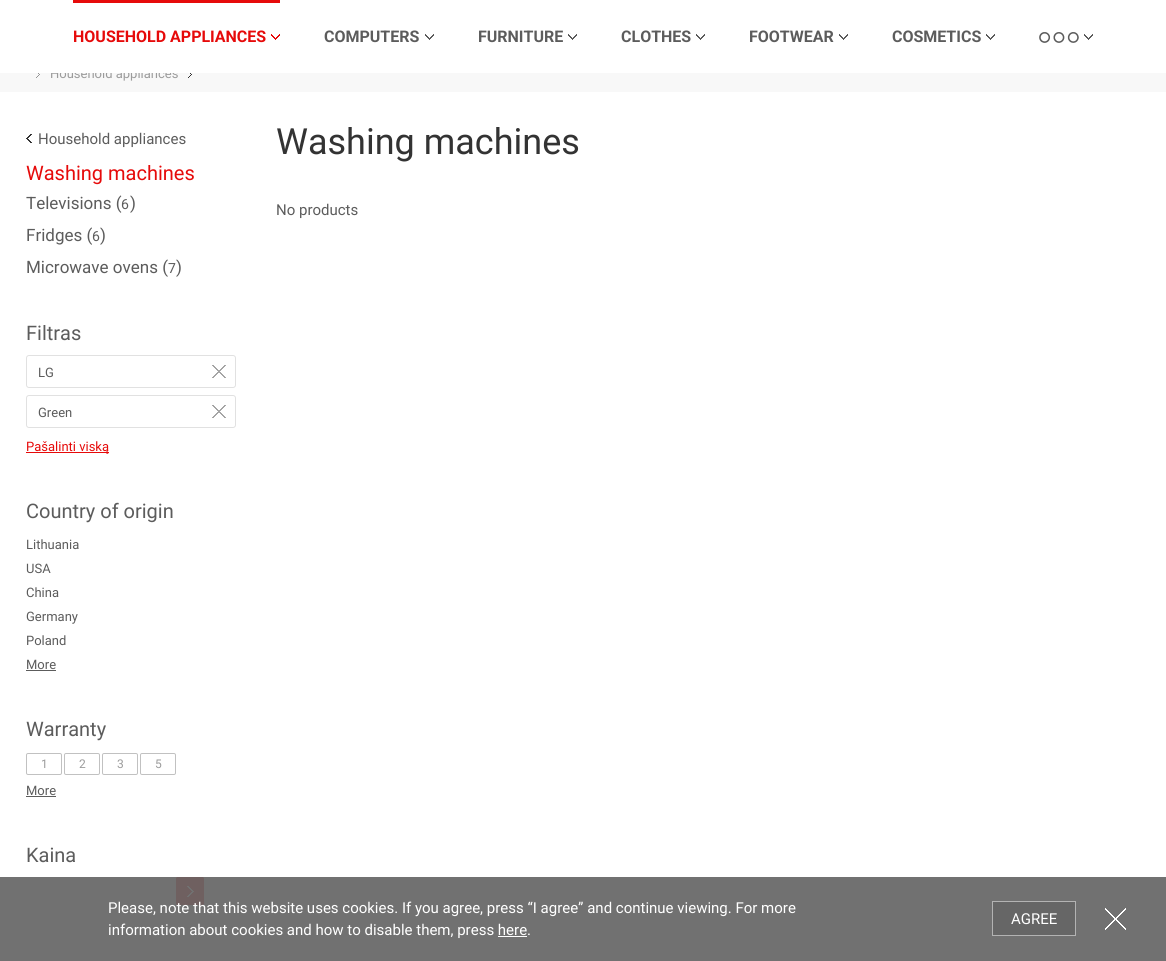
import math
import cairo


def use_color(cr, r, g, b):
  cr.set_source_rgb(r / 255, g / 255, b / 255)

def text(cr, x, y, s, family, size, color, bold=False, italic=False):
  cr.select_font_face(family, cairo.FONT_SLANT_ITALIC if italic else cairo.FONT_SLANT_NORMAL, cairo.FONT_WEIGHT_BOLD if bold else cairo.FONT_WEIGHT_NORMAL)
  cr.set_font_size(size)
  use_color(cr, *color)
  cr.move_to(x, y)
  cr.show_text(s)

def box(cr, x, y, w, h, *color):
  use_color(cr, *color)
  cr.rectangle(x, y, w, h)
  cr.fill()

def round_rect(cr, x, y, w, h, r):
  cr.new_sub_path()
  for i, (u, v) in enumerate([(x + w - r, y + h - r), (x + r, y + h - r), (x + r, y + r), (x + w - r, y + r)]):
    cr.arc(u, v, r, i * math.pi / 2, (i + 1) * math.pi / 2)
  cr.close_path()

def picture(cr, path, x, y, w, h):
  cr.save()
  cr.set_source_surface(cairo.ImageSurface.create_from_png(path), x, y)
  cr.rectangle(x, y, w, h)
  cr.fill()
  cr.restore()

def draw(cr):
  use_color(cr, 255, 255, 255)
  cr.paint()
  box(cr, 0, 877, 1166, 84, 113, 113, 113)
  box(cr, 73, 0, 207, 3, 230, 10, 10)
  picture(cr, "img_01.png", 271, 34, 9, 6)
  picture(cr, "img_02.png", 425, 34, 9, 6)
  picture(cr, "img_02.png", 568, 34, 9, 6)
  picture(cr, "img_02.png", 696, 34, 9, 6)
  picture(cr, "img_02.png", 839, 34, 9, 6)
  picture(cr, "img_02.png", 986, 34, 9, 6)
  picture(cr, "img_03.png", 1039, 32, 40, 11)
  picture(cr, "img_02.png", 1084, 34, 9, 6)
  box(cr, 0, 73, 1166, 19, 248, 248, 248)
  picture(cr, "img_04.png", 36, 73, 4, 5)
  picture(cr, "img_05.png", 188, 73, 4, 5)
  picture(cr, "img_06.png", 26, 134, 6, 9)
  round_rect(cr, 26.5, 355.5, 209, 32, 2.5)
  use_color(cr, 225, 225, 225)
  cr.set_line_width(1)
  cr.stroke()
  picture(cr, "img_07.png", 212, 365, 14, 13)
  round_rect(cr, 26.5, 395.5, 209, 32, 2.5)
  cr.stroke()
  picture(cr, "img_07.png", 212, 405, 14, 13)
  box(cr, 26, 452, 83, 1, 230, 10, 10)
  box(cr, 26, 670, 30, 1, 92, 92, 92)
  round_rect(cr, 26.5, 753.5, 35, 21, 1.5)
  use_color(cr, 193, 193, 193)
  cr.stroke()
  round_rect(cr, 64.5, 753.5, 35, 21, 1.5)
  cr.stroke()
  round_rect(cr, 102.5, 753.5, 35, 21, 1.5)
  cr.stroke()
  round_rect(cr, 140.5, 753.5, 35, 21, 1.5)
  cr.stroke()
  box(cr, 26, 796, 30, 1, 92, 92, 92)
  use_color(cr, 111, 96, 96)
  round_rect(cr, 176, 877, 28, 28, 2)
  cr.fill()
  picture(cr, "img_08.png", 187, 886, 7, 11)
  round_rect(cr, 176.5, 877.5, 27, 27, 1.5)
  cr.stroke()
  box(cr, 498, 936, 29, 1, 255, 255, 255)
  use_color(cr, 102, 102, 102)
  cr.rectangle(992.5, 901.5, 83, 34)
  cr.fill_preserve()
  use_color(cr, 179, 179, 179)
  cr.stroke()
  picture(cr, "img_09.png", 1105, 908, 21, 22)
  text(cr, 73, 42, "HOUSEHOLD APPLIANCES", "Roboto", 16, (230, 10, 10), bold=True)
  text(cr, 324, 42, "COMPUTERS", "Roboto", 16, (92, 92, 92), bold=True)
  text(cr, 478, 42, "FURNITURE", "Roboto", 16, (92, 92, 92), bold=True)
  text(cr, 621, 42, "CLOTHES", "Roboto", 16, (92, 92, 92), bold=True)
  text(cr, 749, 42, "FOOTWEAR", "Roboto", 16, (92, 92, 92), bold=True)
  text(cr, 892, 42, "COSMETICS", "Roboto", 16, (92, 92, 92), bold=True)
  text(cr, 50, 78, "Household appliances", "Roboto", 13, (155, 155, 155))
  box(cr, 51, 68, 127, 5, 255, 255, 255)
  text(cr, 38, 144, "Household appliances", "Roboto", 15, (92, 92, 92))
  text(cr, 26, 180, "Washing machines", "Roboto", 20, (230, 10, 10))
  text(cr, 26, 209, "Televisions (", "Roboto", 17, (92, 92, 92))
  text(cr, 121, 209, "6", "Roboto", 14, (92, 92, 92))
  text(cr, 130, 209, ")", "Roboto", 17, (92, 92, 92))
  text(cr, 26, 241, "Fridges (", "Roboto", 17, (92, 92, 92))
  text(cr, 92, 241, "6", "Roboto", 14, (92, 92, 92))
  text(cr, 100, 241, ")", "Roboto", 17, (92, 92, 92))
  text(cr, 26, 273, "Microwave ovens (", "Roboto", 17, (92, 92, 92))
  text(cr, 168, 273, "7", "Roboto", 14, (92, 92, 92))
  text(cr, 176, 273, ")", "Roboto", 17, (92, 92, 92))
  text(cr, 26, 340, "Filtras", "Roboto", 20, (92, 92, 92))
  text(cr, 38, 377, "LG", "Roboto", 13, (92, 92, 92))
  text(cr, 38, 417, "Green", "Roboto", 13, (92, 92, 92))
  text(cr, 26, 451, "Pašalinti viską", "Roboto", 13, (230, 10, 10))
  text(cr, 26, 518, "Country of origin", "Roboto", 20, (92, 92, 92))
  text(cr, 26, 549, "Lithuania", "Roboto", 13, (92, 92, 92))
  text(cr, 26, 573, "USA", "Roboto", 13, (92, 92, 92))
  text(cr, 26, 597, "China", "Roboto", 13, (92, 92, 92))
  text(cr, 26, 621, "Germany", "Roboto", 13, (92, 92, 92))
  text(cr, 26, 645, "Poland", "Roboto", 13, (92, 92, 92))
  text(cr, 26, 669, "More", "Roboto", 13, (92, 92, 92))
  text(cr, 26, 736, "Warranty", "Roboto", 20, (92, 92, 92))
  text(cr, 41, 768, "1", "Roboto", 12, (155, 155, 155))
  text(cr, 79, 768, "2", "Roboto", 12, (155, 155, 155))
  text(cr, 117, 768, "3", "Roboto", 12, (155, 155, 155))
  text(cr, 155, 768, "5", "Roboto", 12, (155, 155, 155))
  text(cr, 26, 795, "More", "Roboto", 13, (92, 92, 92))
  text(cr, 26, 862, "Kaina", "Roboto", 20, (92, 92, 92))
  text(cr, 276, 154, "Washing machines", "Roboto", 36, (51, 51, 51))
  text(cr, 276, 215, "No products", "Roboto", 15, (92, 92, 92))
  text(cr, 108, 913, "Please, note that this website uses cookies. If you agree, press “I agree” and continue viewing. For more", "Roboto", 15, (255, 255, 255))
  text(cr, 108, 935, "information about cookies and how to disable them, press here.", "Roboto", 15, (255, 255, 255))
  text(cr, 1011, 924, "AGREE", "Roboto", 15, (255, 255, 255))


surface = cairo.ImageSurface(cairo.FORMAT_RGB24, 1166, 961)
cr = cairo.Context(surface)
options = cairo.FontOptions()
options.set_hint_metrics(cairo.HINT_METRICS_OFF)
options.set_hint_style(cairo.HINT_STYLE_NONE)
cr.set_font_options(options)
cr.set_miter_limit(4)
draw(cr)
surface.write_to_png("out.png")
